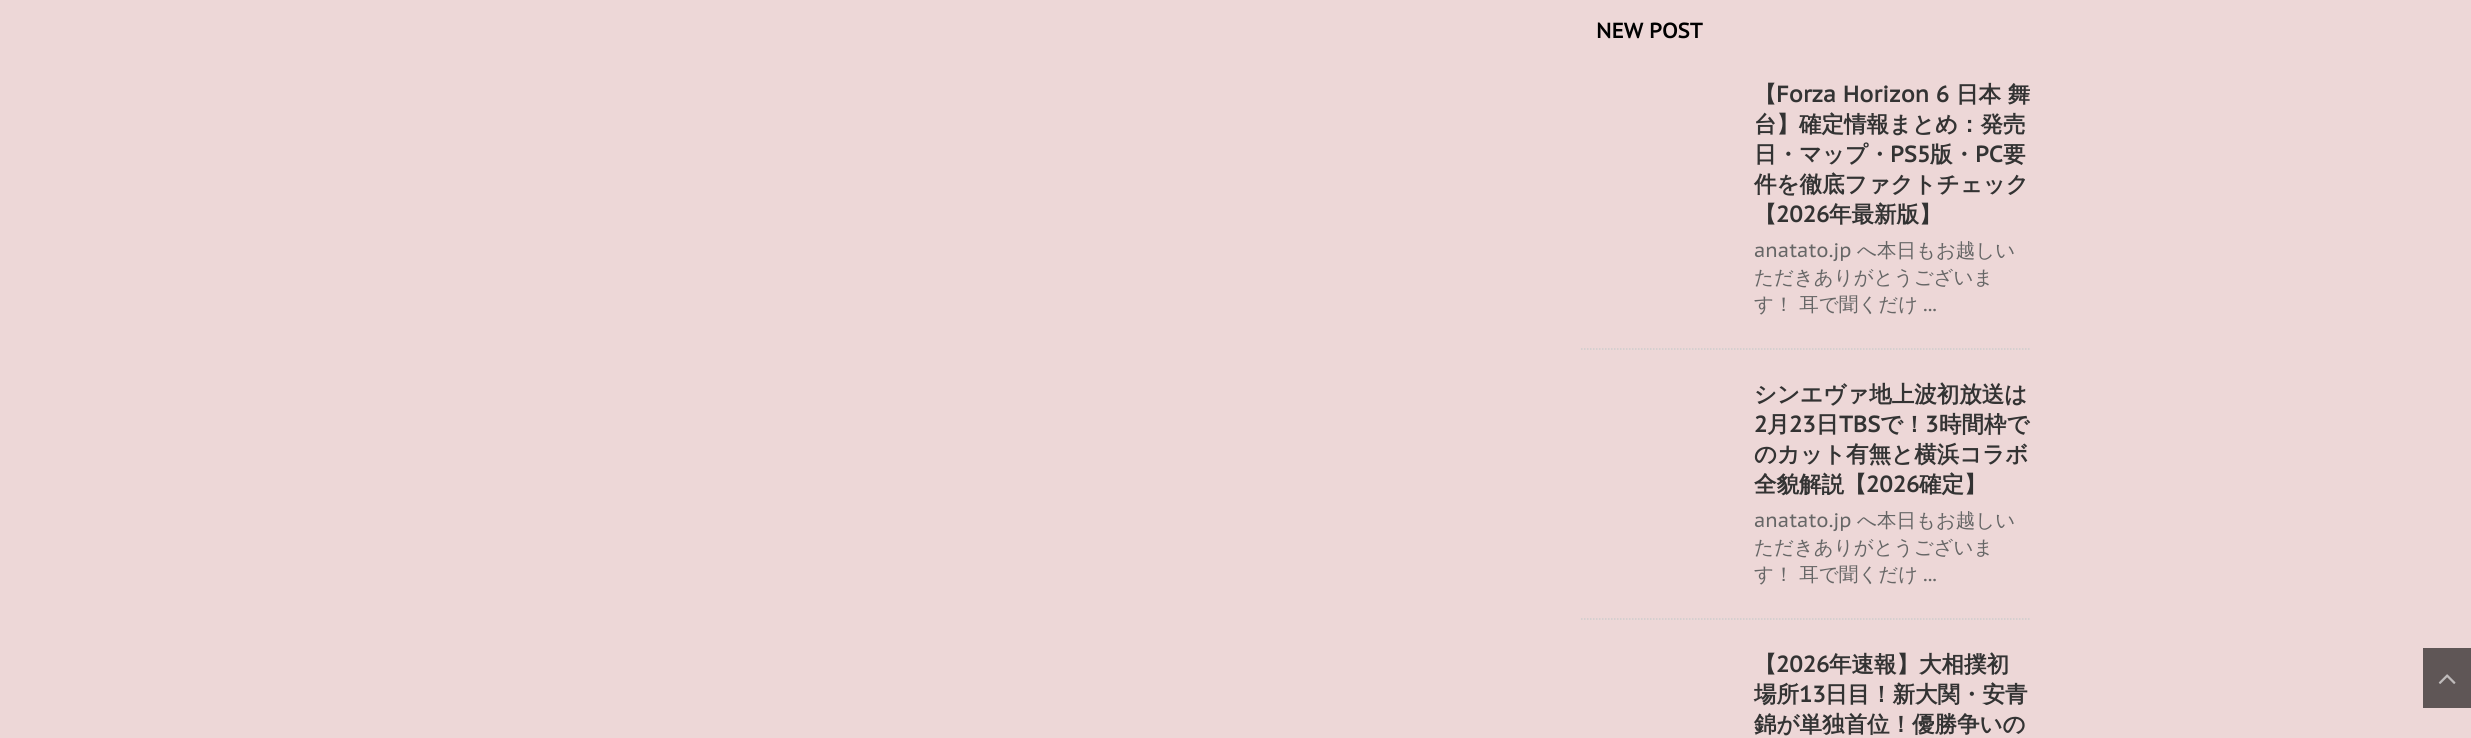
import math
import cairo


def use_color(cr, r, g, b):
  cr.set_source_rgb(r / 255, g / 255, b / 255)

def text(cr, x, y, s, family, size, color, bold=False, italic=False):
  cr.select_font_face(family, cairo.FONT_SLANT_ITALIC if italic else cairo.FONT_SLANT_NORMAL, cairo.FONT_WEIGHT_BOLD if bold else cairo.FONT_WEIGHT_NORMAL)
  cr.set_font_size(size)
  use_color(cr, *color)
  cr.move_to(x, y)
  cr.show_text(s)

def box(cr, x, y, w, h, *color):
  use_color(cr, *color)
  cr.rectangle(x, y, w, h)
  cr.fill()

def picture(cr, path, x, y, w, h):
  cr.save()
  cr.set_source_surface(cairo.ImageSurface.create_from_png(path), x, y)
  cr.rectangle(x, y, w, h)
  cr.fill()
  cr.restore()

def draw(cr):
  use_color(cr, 237, 215, 215)
  cr.paint()
  cr.new_path()
  cr.move_to(1581, 349)
  cr.line_to(2031, 349)
  use_color(cr, 204, 204, 204)
  cr.set_line_width(1.5)
  cr.set_dash([1.5, 1.5])
  cr.stroke()
  cr.new_path()
  cr.move_to(1581, 619)
  cr.line_to(2031, 619)
  cr.stroke()
  box(cr, 2423, 648, 48, 60, 95, 86, 86)
  picture(cr, "img_01.png", 2438, 674, 18, 10)
  text(cr, 1596, 38, "NEW POST", "PT Sans Caption", 21, (0, 0, 0), bold=True)
  text(cr, 1754, 102, "【", "WenQuanYi Zen Hei", 22.5, (51, 51, 51), bold=True)
  text(cr, 1776, 102, "Forza Horizon 6", "PT Sans Caption", 22.5, (51, 51, 51), bold=True)
  text(cr, 1956, 102, "日本 舞", "WenQuanYi Zen Hei", 22.5, (51, 51, 51), bold=True)
  text(cr, 1754, 132, "台】確定情報まとめ：発売", "WenQuanYi Zen Hei", 22.5, (51, 51, 51), bold=True)
  text(cr, 1754, 162, "日・マップ・", "WenQuanYi Zen Hei", 22.5, (51, 51, 51), bold=True)
  text(cr, 1890, 162, "PS5", "PT Sans Caption", 22.5, (51, 51, 51), bold=True)
  text(cr, 1930, 162, "版・", "WenQuanYi Zen Hei", 22.5, (51, 51, 51), bold=True)
  text(cr, 1975, 162, "PC", "PT Sans Caption", 22.5, (51, 51, 51), bold=True)
  text(cr, 2003, 162, "要", "WenQuanYi Zen Hei", 22.5, (51, 51, 51), bold=True)
  text(cr, 1754, 192, "件を徹底ファクトチェック", "WenQuanYi Zen Hei", 22.5, (51, 51, 51), bold=True)
  text(cr, 1754, 222, "【", "WenQuanYi Zen Hei", 22.5, (51, 51, 51), bold=True)
  text(cr, 1776, 222, "2026", "PT Sans Caption", 22.5, (51, 51, 51), bold=True)
  text(cr, 1829, 222, "年最新版】", "WenQuanYi Zen Hei", 22.5, (51, 51, 51), bold=True)
  text(cr, 1754, 257, "anatato.jp", "PT Sans Caption", 19.5, (102, 102, 102))
  text(cr, 1857, 257, "へ本日もお越しい", "WenQuanYi Zen Hei Medium", 19.5, (102, 102, 102))
  text(cr, 1754, 284, "ただきありがとうございま", "WenQuanYi Zen Hei Medium", 19.5, (102, 102, 102))
  text(cr, 1754, 311, "す！ 耳で聞くだけ", "WenQuanYi Zen Hei Medium", 19.5, (102, 102, 102))
  text(cr, 1923, 311, "...", "PT Sans Caption", 19.5, (102, 102, 102))
  text(cr, 1754, 402, "シンエヴァ地上波初放送は", "WenQuanYi Zen Hei", 22.5, (51, 51, 51), bold=True)
  text(cr, 1754, 432, "2", "PT Sans Caption", 22.5, (51, 51, 51), bold=True)
  text(cr, 1767, 432, "月", "WenQuanYi Zen Hei", 22.5, (51, 51, 51), bold=True)
  text(cr, 1789, 432, "23", "PT Sans Caption", 22.5, (51, 51, 51), bold=True)
  text(cr, 1816, 432, "日", "WenQuanYi Zen Hei", 22.5, (51, 51, 51), bold=True)
  text(cr, 1839, 432, "TBS", "PT Sans Caption", 22.5, (51, 51, 51), bold=True)
  text(cr, 1880, 432, "で！", "WenQuanYi Zen Hei", 22.5, (51, 51, 51), bold=True)
  text(cr, 1925, 432, "3", "PT Sans Caption", 22.5, (51, 51, 51), bold=True)
  text(cr, 1939, 432, "時間枠で", "WenQuanYi Zen Hei", 22.5, (51, 51, 51), bold=True)
  text(cr, 1754, 462, "のカット有無と横浜コラボ", "WenQuanYi Zen Hei", 22.5, (51, 51, 51), bold=True)
  text(cr, 1754, 492, "全貌解説【", "WenQuanYi Zen Hei", 22.5, (51, 51, 51), bold=True)
  text(cr, 1866, 492, "2026", "PT Sans Caption", 22.5, (51, 51, 51), bold=True)
  text(cr, 1919, 492, "確定】", "WenQuanYi Zen Hei", 22.5, (51, 51, 51), bold=True)
  text(cr, 1754, 527, "anatato.jp", "PT Sans Caption", 19.5, (102, 102, 102))
  text(cr, 1857, 527, "へ本日もお越しい", "WenQuanYi Zen Hei Medium", 19.5, (102, 102, 102))
  text(cr, 1754, 554, "ただきありがとうございま", "WenQuanYi Zen Hei Medium", 19.5, (102, 102, 102))
  text(cr, 1754, 581, "す！ 耳で聞くだけ", "WenQuanYi Zen Hei Medium", 19.5, (102, 102, 102))
  text(cr, 1923, 581, "...", "PT Sans Caption", 19.5, (102, 102, 102))
  text(cr, 1754, 672, "【", "WenQuanYi Zen Hei", 22.5, (51, 51, 51), bold=True)
  text(cr, 1776, 672, "2026", "PT Sans Caption", 22.5, (51, 51, 51), bold=True)
  text(cr, 1829, 672, "年速報】大相撲初", "WenQuanYi Zen Hei", 22.5, (51, 51, 51), bold=True)
  text(cr, 1754, 702, "場所", "WenQuanYi Zen Hei", 22.5, (51, 51, 51), bold=True)
  text(cr, 1799, 702, "13", "PT Sans Caption", 22.5, (51, 51, 51), bold=True)
  text(cr, 1825, 702, "日目！新大関・安青", "WenQuanYi Zen Hei", 22.5, (51, 51, 51), bold=True)
  text(cr, 1754, 732, "錦が単独首位！優勝争いの", "WenQuanYi Zen Hei", 22.5, (51, 51, 51), bold=True)


surface = cairo.ImageSurface(cairo.FORMAT_RGB24, 2471, 738)
cr = cairo.Context(surface)
options = cairo.FontOptions()
options.set_hint_metrics(cairo.HINT_METRICS_OFF)
options.set_hint_style(cairo.HINT_STYLE_NONE)
cr.set_font_options(options)
cr.set_miter_limit(4)
draw(cr)
surface.write_to_png("out.png")
